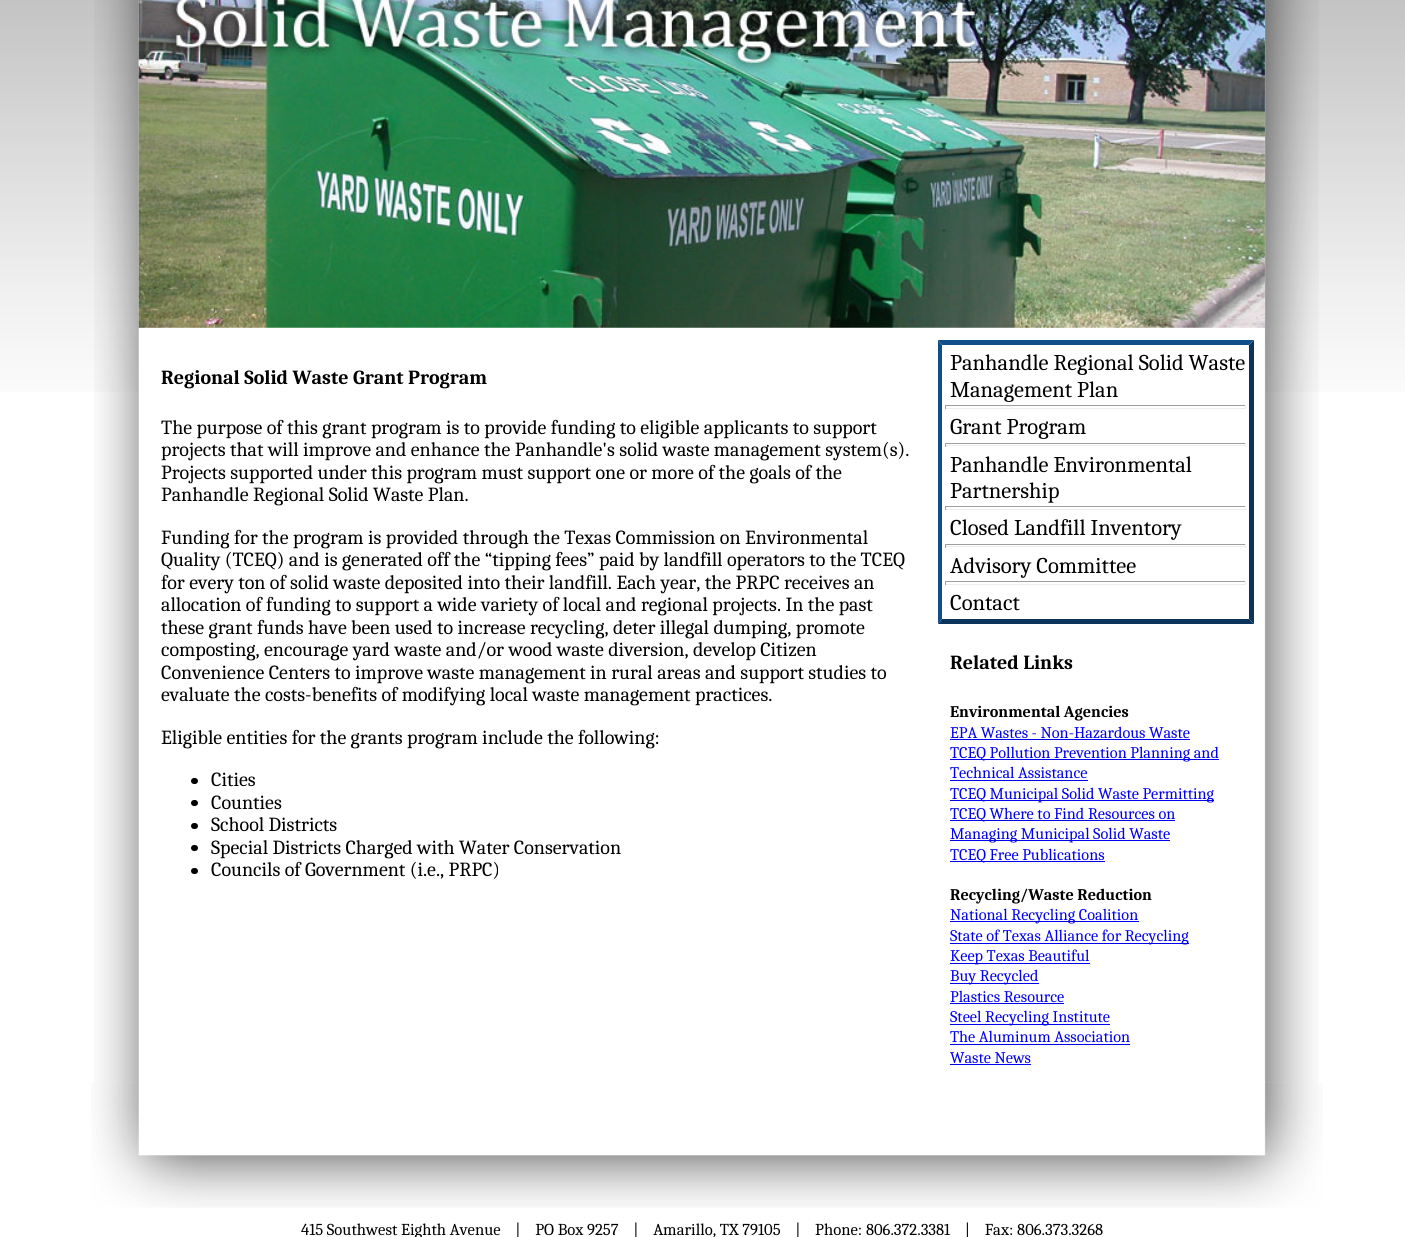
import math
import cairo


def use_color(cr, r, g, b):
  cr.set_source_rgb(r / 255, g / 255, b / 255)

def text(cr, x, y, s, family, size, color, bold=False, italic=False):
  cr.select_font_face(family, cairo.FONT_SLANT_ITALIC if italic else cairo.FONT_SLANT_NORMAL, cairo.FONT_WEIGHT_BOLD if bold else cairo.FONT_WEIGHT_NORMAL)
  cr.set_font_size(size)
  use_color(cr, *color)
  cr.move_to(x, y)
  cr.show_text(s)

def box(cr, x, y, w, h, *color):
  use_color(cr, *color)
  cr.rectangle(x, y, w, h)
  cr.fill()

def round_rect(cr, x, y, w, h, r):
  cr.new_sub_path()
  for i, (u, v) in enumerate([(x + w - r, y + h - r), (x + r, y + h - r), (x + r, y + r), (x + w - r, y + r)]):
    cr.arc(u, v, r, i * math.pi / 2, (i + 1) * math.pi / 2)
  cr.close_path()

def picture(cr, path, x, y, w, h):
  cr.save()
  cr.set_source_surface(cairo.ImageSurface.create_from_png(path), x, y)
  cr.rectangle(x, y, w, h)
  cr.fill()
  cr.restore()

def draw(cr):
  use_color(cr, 255, 255, 255)
  cr.paint()
  picture(cr, "img_01.png", 0, 0, 1405, 392)
  picture(cr, "img_02.png", 10, 0, 1385, 392)
  picture(cr, "img_05.png", 91, 1082, 1232, 126)
  picture(cr, "img_03.png", 94, 0, 1225, 1083)
  picture(cr, "img_04.png", 138, 0, 1127, 328)
  use_color(cr, 0, 0, 0)
  round_rect(cr, 191, 778, 7, 6, 3)
  cr.fill()
  round_rect(cr, 191, 800, 7, 6, 3)
  cr.fill()
  round_rect(cr, 191, 823, 7, 6, 3)
  cr.fill()
  round_rect(cr, 191, 845, 7, 6, 3)
  cr.fill()
  round_rect(cr, 191, 868, 7, 6, 3)
  cr.fill()
  use_color(cr, 16, 78, 139)
  cr.new_path()
  cr.move_to(938, 340)
  cr.line_to(1254, 340)
  cr.line_to(1249, 345)
  cr.line_to(942, 345)
  cr.close_path()
  cr.fill()
  use_color(cr, 11, 52, 93)
  cr.new_path()
  cr.move_to(1254, 340)
  cr.line_to(1254, 624)
  cr.line_to(1249, 619)
  cr.line_to(1249, 345)
  cr.close_path()
  cr.fill()
  cr.new_path()
  cr.move_to(1254, 624)
  cr.line_to(938, 624)
  cr.line_to(942, 619)
  cr.line_to(1249, 619)
  cr.close_path()
  cr.fill()
  use_color(cr, 16, 78, 139)
  cr.new_path()
  cr.move_to(938, 624)
  cr.line_to(938, 340)
  cr.line_to(942, 345)
  cr.line_to(942, 619)
  cr.close_path()
  cr.fill()
  box(cr, 945, 405, 301, 1, 159, 159, 159)
  box(cr, 1245, 405, 1, 4, 238, 238, 238)
  box(cr, 945, 408, 301, 1, 238, 238, 238)
  box(cr, 945, 405, 1, 4, 159, 159, 159)
  box(cr, 945, 443, 301, 1, 159, 159, 159)
  box(cr, 1245, 443, 1, 4, 238, 238, 238)
  box(cr, 945, 445, 301, 1, 238, 238, 238)
  box(cr, 945, 443, 1, 4, 159, 159, 159)
  box(cr, 945, 506, 301, 1, 159, 159, 159)
  box(cr, 1245, 506, 1, 4, 238, 238, 238)
  box(cr, 945, 509, 301, 1, 238, 238, 238)
  box(cr, 945, 506, 1, 4, 159, 159, 159)
  box(cr, 945, 544, 301, 1, 159, 159, 159)
  box(cr, 1245, 544, 1, 4, 238, 238, 238)
  box(cr, 945, 546, 301, 1, 238, 238, 238)
  box(cr, 945, 544, 1, 4, 159, 159, 159)
  box(cr, 945, 581, 301, 1, 159, 159, 159)
  box(cr, 1245, 581, 1, 4, 238, 238, 238)
  box(cr, 945, 584, 301, 1, 238, 238, 238)
  box(cr, 945, 581, 1, 4, 159, 159, 159)
  box(cr, 950, 739, 240, 1, 0, 0, 238)
  box(cr, 950, 759, 269, 1, 0, 0, 238)
  box(cr, 950, 780, 138, 1, 0, 0, 238)
  box(cr, 950, 800, 264, 1, 0, 0, 238)
  box(cr, 950, 820, 225, 1, 0, 0, 238)
  box(cr, 950, 840, 220, 1, 0, 0, 238)
  box(cr, 950, 861, 155, 1, 0, 0, 238)
  box(cr, 950, 921, 189, 1, 0, 0, 238)
  box(cr, 950, 943, 239, 1, 0, 0, 238)
  box(cr, 950, 963, 140, 1, 0, 0, 238)
  box(cr, 950, 983, 89, 1, 0, 0, 238)
  box(cr, 950, 1003, 114, 1, 0, 0, 238)
  box(cr, 950, 1024, 160, 1, 0, 0, 238)
  box(cr, 950, 1044, 180, 1, 0, 0, 238)
  box(cr, 950, 1064, 81, 1, 0, 0, 238)
  text(cr, 161, 384, "Regional Solid Waste Grant Program", "Caladea", 20, (0, 0, 0), bold=True)
  text(cr, 161, 434, "The purpose of this grant program is to provide funding to eligible applicants to support", "Caladea", 20, (0, 0, 0))
  text(cr, 161, 456, "projects that will improve and enhance the Panhandle's solid waste management system(s).", "Caladea", 20, (0, 0, 0))
  text(cr, 161, 479, "Projects supported under this program must support one or more of the goals of the", "Caladea", 20, (0, 0, 0))
  text(cr, 161, 501, "Panhandle Regional Solid Waste Plan.", "Caladea", 20, (0, 0, 0))
  text(cr, 161, 544, "Funding for the program is provided through the Texas Commission on Environmental", "Caladea", 20, (0, 0, 0))
  text(cr, 161, 566, "Quality (TCEQ) and is generated off the “tipping fees” paid by landfill operators to the TCEQ", "Caladea", 20, (0, 0, 0))
  text(cr, 161, 589, "for every ton of solid waste deposited into their landfill. Each year, the PRPC receives an", "Caladea", 20, (0, 0, 0))
  text(cr, 161, 611, "allocation of funding to support a wide variety of local and regional projects. In the past", "Caladea", 20, (0, 0, 0))
  text(cr, 161, 634, "these grant funds have been used to increase recycling, deter illegal dumping, promote", "Caladea", 20, (0, 0, 0))
  text(cr, 161, 656, "composting, encourage yard waste and/or wood waste diversion, develop Citizen", "Caladea", 20, (0, 0, 0))
  text(cr, 161, 679, "Convenience Centers to improve waste management in rural areas and support studies to", "Caladea", 20, (0, 0, 0))
  text(cr, 161, 701, "evaluate the costs-benefits of modifying local waste management practices.", "Caladea", 20, (0, 0, 0))
  text(cr, 161, 744, "Eligible entities for the grants program include the following:", "Caladea", 20, (0, 0, 0))
  text(cr, 211, 786, "Cities", "Caladea", 20, (0, 0, 0))
  text(cr, 211, 809, "Counties", "Caladea", 20, (0, 0, 0))
  text(cr, 211, 831, "School Districts", "Caladea", 20, (0, 0, 0))
  text(cr, 211, 854, "Special Districts Charged with Water Conservation", "Caladea", 20, (0, 0, 0))
  text(cr, 211, 876, "Councils of Government (i.e., PRPC)", "Caladea", 20, (0, 0, 0))
  text(cr, 950, 370, "Panhandle Regional Solid Waste", "Caladea", 22.5, (0, 0, 0))
  text(cr, 950, 397, "Management Plan", "Caladea", 22.5, (0, 0, 0))
  text(cr, 950, 434, "Grant Program", "Caladea", 22.5, (0, 0, 0))
  text(cr, 950, 472, "Panhandle Environmental", "Caladea", 22.5, (0, 0, 0))
  text(cr, 950, 498, "Partnership", "Caladea", 22.5, (0, 0, 0))
  text(cr, 950, 535, "Closed Landfill Inventory", "Caladea", 22.5, (0, 0, 0))
  text(cr, 950, 573, "Advisory Committee", "Caladea", 22.5, (0, 0, 0))
  text(cr, 950, 610, "Contact", "Caladea", 22.5, (0, 0, 0))
  text(cr, 950, 669, "Related Links", "Caladea", 20, (0, 0, 0), bold=True)
  text(cr, 950, 717, "Environmental Agencies", "Caladea", 16.25, (0, 0, 0), bold=True)
  text(cr, 950, 738, "EPA Wastes - Non-Hazardous Waste", "Caladea", 16.25, (0, 0, 238))
  text(cr, 950, 758, "TCEQ Pollution Prevention Planning and", "Caladea", 16.25, (0, 0, 238))
  text(cr, 950, 778, "Technical Assistance", "Caladea", 16.25, (0, 0, 238))
  text(cr, 950, 799, "TCEQ Municipal Solid Waste Permitting", "Caladea", 16.25, (0, 0, 238))
  text(cr, 950, 819, "TCEQ Where to Find Resources on", "Caladea", 16.25, (0, 0, 238))
  text(cr, 950, 839, "Managing Municipal Solid Waste", "Caladea", 16.25, (0, 0, 238))
  text(cr, 950, 860, "TCEQ Free Publications", "Caladea", 16.25, (0, 0, 238))
  text(cr, 950, 900, "Recycling/Waste Reduction", "Caladea", 16.25, (0, 0, 0), bold=True)
  text(cr, 950, 920, "National Recycling Coalition", "Caladea", 16.25, (0, 0, 238))
  text(cr, 950, 941, "State of Texas Alliance for Recycling", "Caladea", 16.25, (0, 0, 238))
  text(cr, 950, 961, "Keep Texas Beautiful", "Caladea", 16.25, (0, 0, 238))
  text(cr, 950, 981, "Buy Recycled", "Caladea", 16.25, (0, 0, 238))
  text(cr, 950, 1002, "Plastics Resource", "Caladea", 16.25, (0, 0, 238))
  text(cr, 950, 1022, "Steel Recycling Institute", "Caladea", 16.25, (0, 0, 238))
  text(cr, 950, 1042, "The Aluminum Association", "Caladea", 16.25, (0, 0, 238))
  text(cr, 950, 1063, "Waste News", "Caladea", 16.25, (0, 0, 238))
  text(cr, 301, 1235, "415 Southwest Eighth Avenue    |    PO Box 9257    |    Amarillo, TX 79105    |    Phone: 806.372.3381    |    Fax: 806.373.3268", "Caladea", 16.65, (0, 0, 0))


surface = cairo.ImageSurface(cairo.FORMAT_RGB24, 1405, 1237)
cr = cairo.Context(surface)
options = cairo.FontOptions()
options.set_hint_metrics(cairo.HINT_METRICS_OFF)
options.set_hint_style(cairo.HINT_STYLE_NONE)
cr.set_font_options(options)
cr.set_miter_limit(4)
draw(cr)
surface.write_to_png("out.png")
